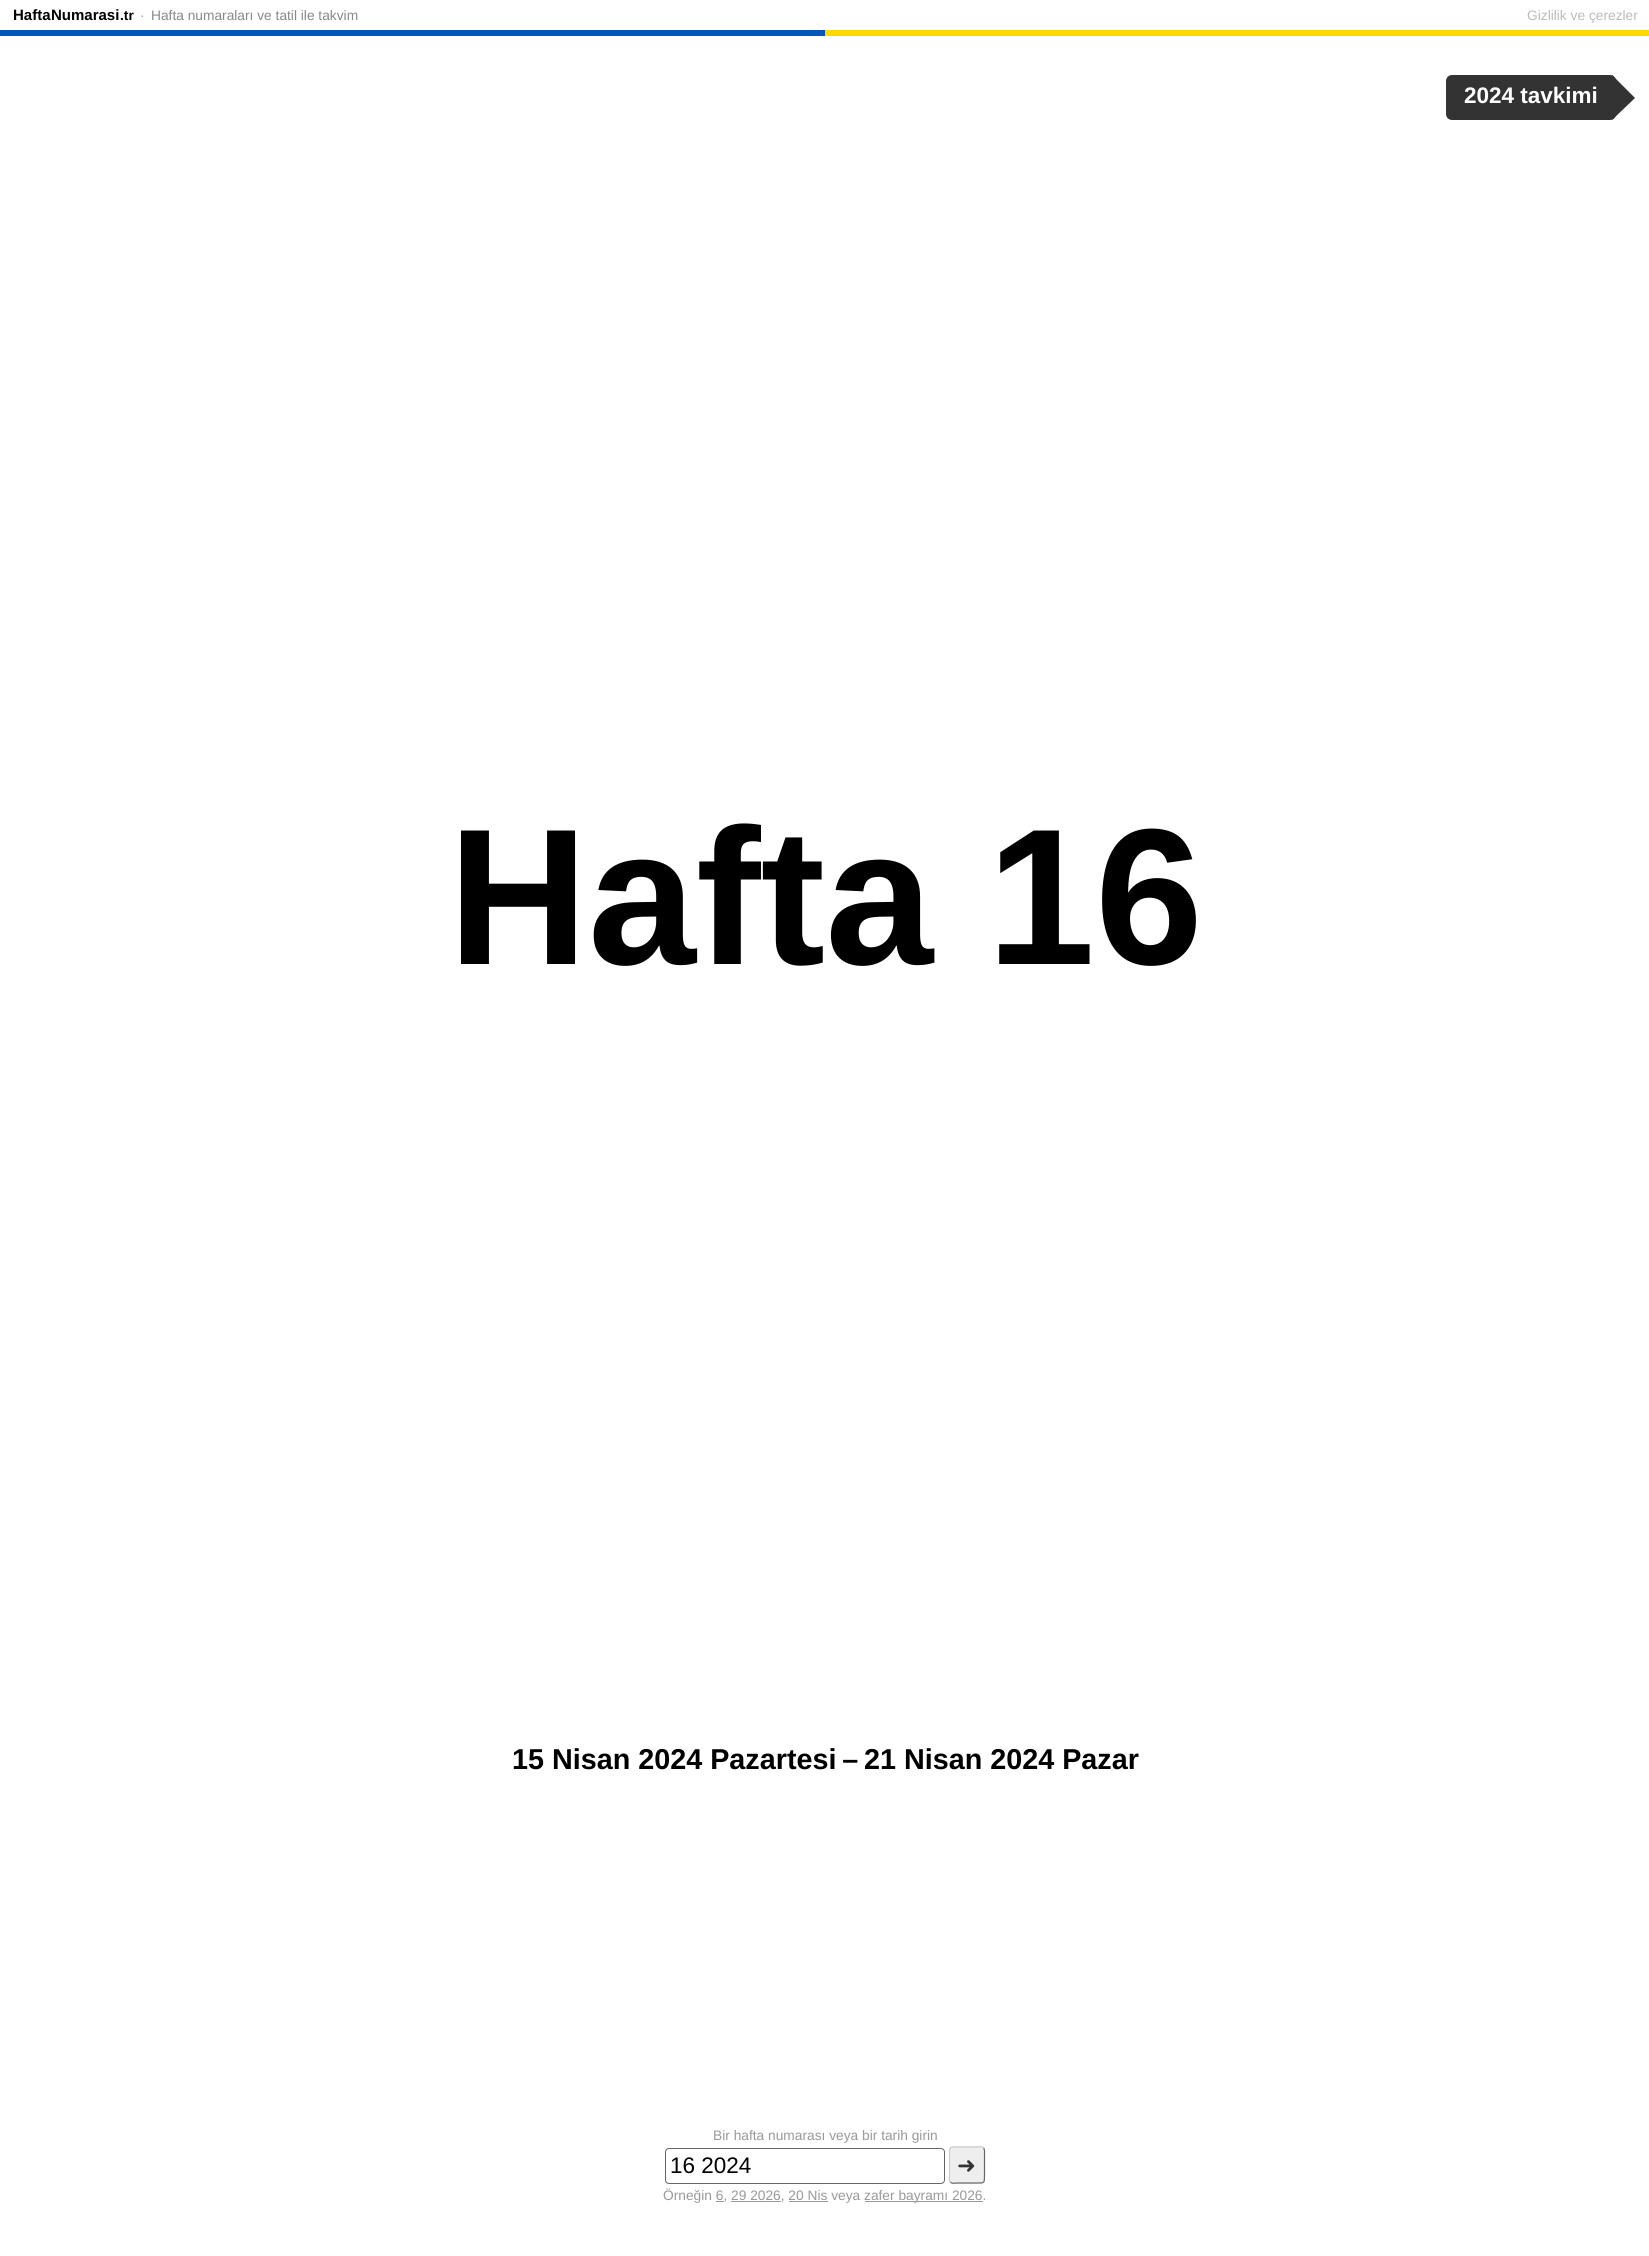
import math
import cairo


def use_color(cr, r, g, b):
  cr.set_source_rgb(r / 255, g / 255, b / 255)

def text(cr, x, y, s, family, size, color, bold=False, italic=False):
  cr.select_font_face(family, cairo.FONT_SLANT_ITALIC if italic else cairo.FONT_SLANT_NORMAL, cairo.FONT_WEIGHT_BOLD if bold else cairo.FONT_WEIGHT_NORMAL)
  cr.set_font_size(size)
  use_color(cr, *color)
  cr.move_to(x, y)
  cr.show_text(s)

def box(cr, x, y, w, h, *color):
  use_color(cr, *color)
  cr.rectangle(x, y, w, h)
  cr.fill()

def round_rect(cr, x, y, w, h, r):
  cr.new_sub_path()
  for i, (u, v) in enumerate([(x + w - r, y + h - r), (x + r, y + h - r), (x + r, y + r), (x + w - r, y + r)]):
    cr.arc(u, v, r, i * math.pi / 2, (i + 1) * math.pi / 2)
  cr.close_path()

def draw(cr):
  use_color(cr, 255, 255, 255)
  cr.paint()
  box(cr, 0, 30, 825, 6, 0, 86, 185)
  box(cr, 825, 30, 824, 6, 255, 216, 0)
  use_color(cr, 51, 51, 51)
  round_rect(cr, 1446, 75, 170, 45, 6)
  cr.fill()
  cr.new_path()
  cr.move_to(1612, 120)
  cr.line_to(1612, 75)
  cr.line_to(1635, 98)
  cr.close_path()
  cr.fill()
  round_rect(cr, 665.5, 2148.5, 279, 35, 3.5)
  use_color(cr, 102, 102, 102)
  cr.set_line_width(1)
  cr.stroke()
  use_color(cr, 238, 238, 238)
  round_rect(cr, 949, 2146, 36, 38, 4)
  cr.fill()
  cr.new_path()
  cr.move_to(983.5, 2148)
  cr.curve_to(985, 2149.5, 984.5, 2153.5, 984.5, 2155)
  cr.line_to(984.5, 2175)
  cr.curve_to(984.5, 2183.5, 984.5, 2183, 976.5, 2183)
  cr.line_to(957.5, 2183)
  cr.curve_to(955.5, 2183, 952, 2184, 950.5, 2182)
  use_color(cr, 102, 102, 102)
  cr.set_line_width(1.2)
  cr.stroke()
  cr.new_path()
  cr.move_to(950.5, 2182)
  cr.curve_to(948.5, 2180.5, 949.5, 2176.5, 949.5, 2175)
  cr.line_to(949.5, 2155)
  cr.curve_to(949.5, 2146.5, 949, 2147, 957.5, 2147)
  cr.line_to(976.5, 2147)
  cr.curve_to(978, 2147, 982, 2146, 983.5, 2148)
  use_color(cr, 204, 204, 204)
  cr.stroke()
  box(cr, 865, 2201, 118, 1, 153, 153, 153)
  box(cr, 716, 2201, 8, 1, 153, 153, 153)
  box(cr, 731, 2201, 50, 1, 153, 153, 153)
  box(cr, 789, 2201, 39, 1, 153, 153, 153)
  text(cr, 13, 20, "Hafta", "Liberation Sans", 15, (0, 0, 0), bold=True)
  text(cr, 51, 20, "Numarasi", "Liberation Sans", 15, (0, 0, 0), bold=True)
  text(cr, 120, 20, ".tr", "Liberation Sans", 13.75, (0, 0, 0), bold=True)
  text(cr, 140, 20, "·", "Liberation Sans", 13.75, (153, 153, 153))
  text(cr, 151, 20, "Hafta numaraları ve tatil ile takvim", "Liberation Sans", 13.75, (136, 136, 136))
  text(cr, 1527, 20, "Gizlilik ve çerezler", "Liberation Sans", 13.75, (187, 187, 187))
  text(cr, 1464, 103, "2024 tavkimi", "Liberation Sans", 22.5, (255, 255, 255), bold=True)
  text(cr, 448, 964, "Hafta 16", "Liberation Sans", 194, (0, 0, 0), bold=True)
  text(cr, 512, 1769, "15 Nisan 2024 Pazartesi – 21 Nisan 2024 Pazar", "Liberation Sans", 28.75, (0, 0, 0), bold=True)
  text(cr, 713, 2140, "Bir hafta numarası veya bir tarih girin", "Liberation Sans", 13.75, (153, 153, 153))
  text(cr, 670, 2173, "16 2024", "Liberation Sans", 22.5, (0, 0, 0))
  text(cr, 957, 2173, "➜", "DejaVu Sans", 22.5, (51, 51, 51))
  text(cr, 663, 2200, "Örneğin 6, 29 2026, 20 Nis veya", "Liberation Sans", 13.75, (153, 153, 153))
  text(cr, 864, 2200, "zafer bayramı 2026.", "Liberation Sans", 13.75, (153, 153, 153))


surface = cairo.ImageSurface(cairo.FORMAT_RGB24, 1649, 2256)
cr = cairo.Context(surface)
options = cairo.FontOptions()
options.set_hint_metrics(cairo.HINT_METRICS_OFF)
options.set_hint_style(cairo.HINT_STYLE_NONE)
cr.set_font_options(options)
cr.set_miter_limit(4)
draw(cr)
surface.write_to_png("out.png")
